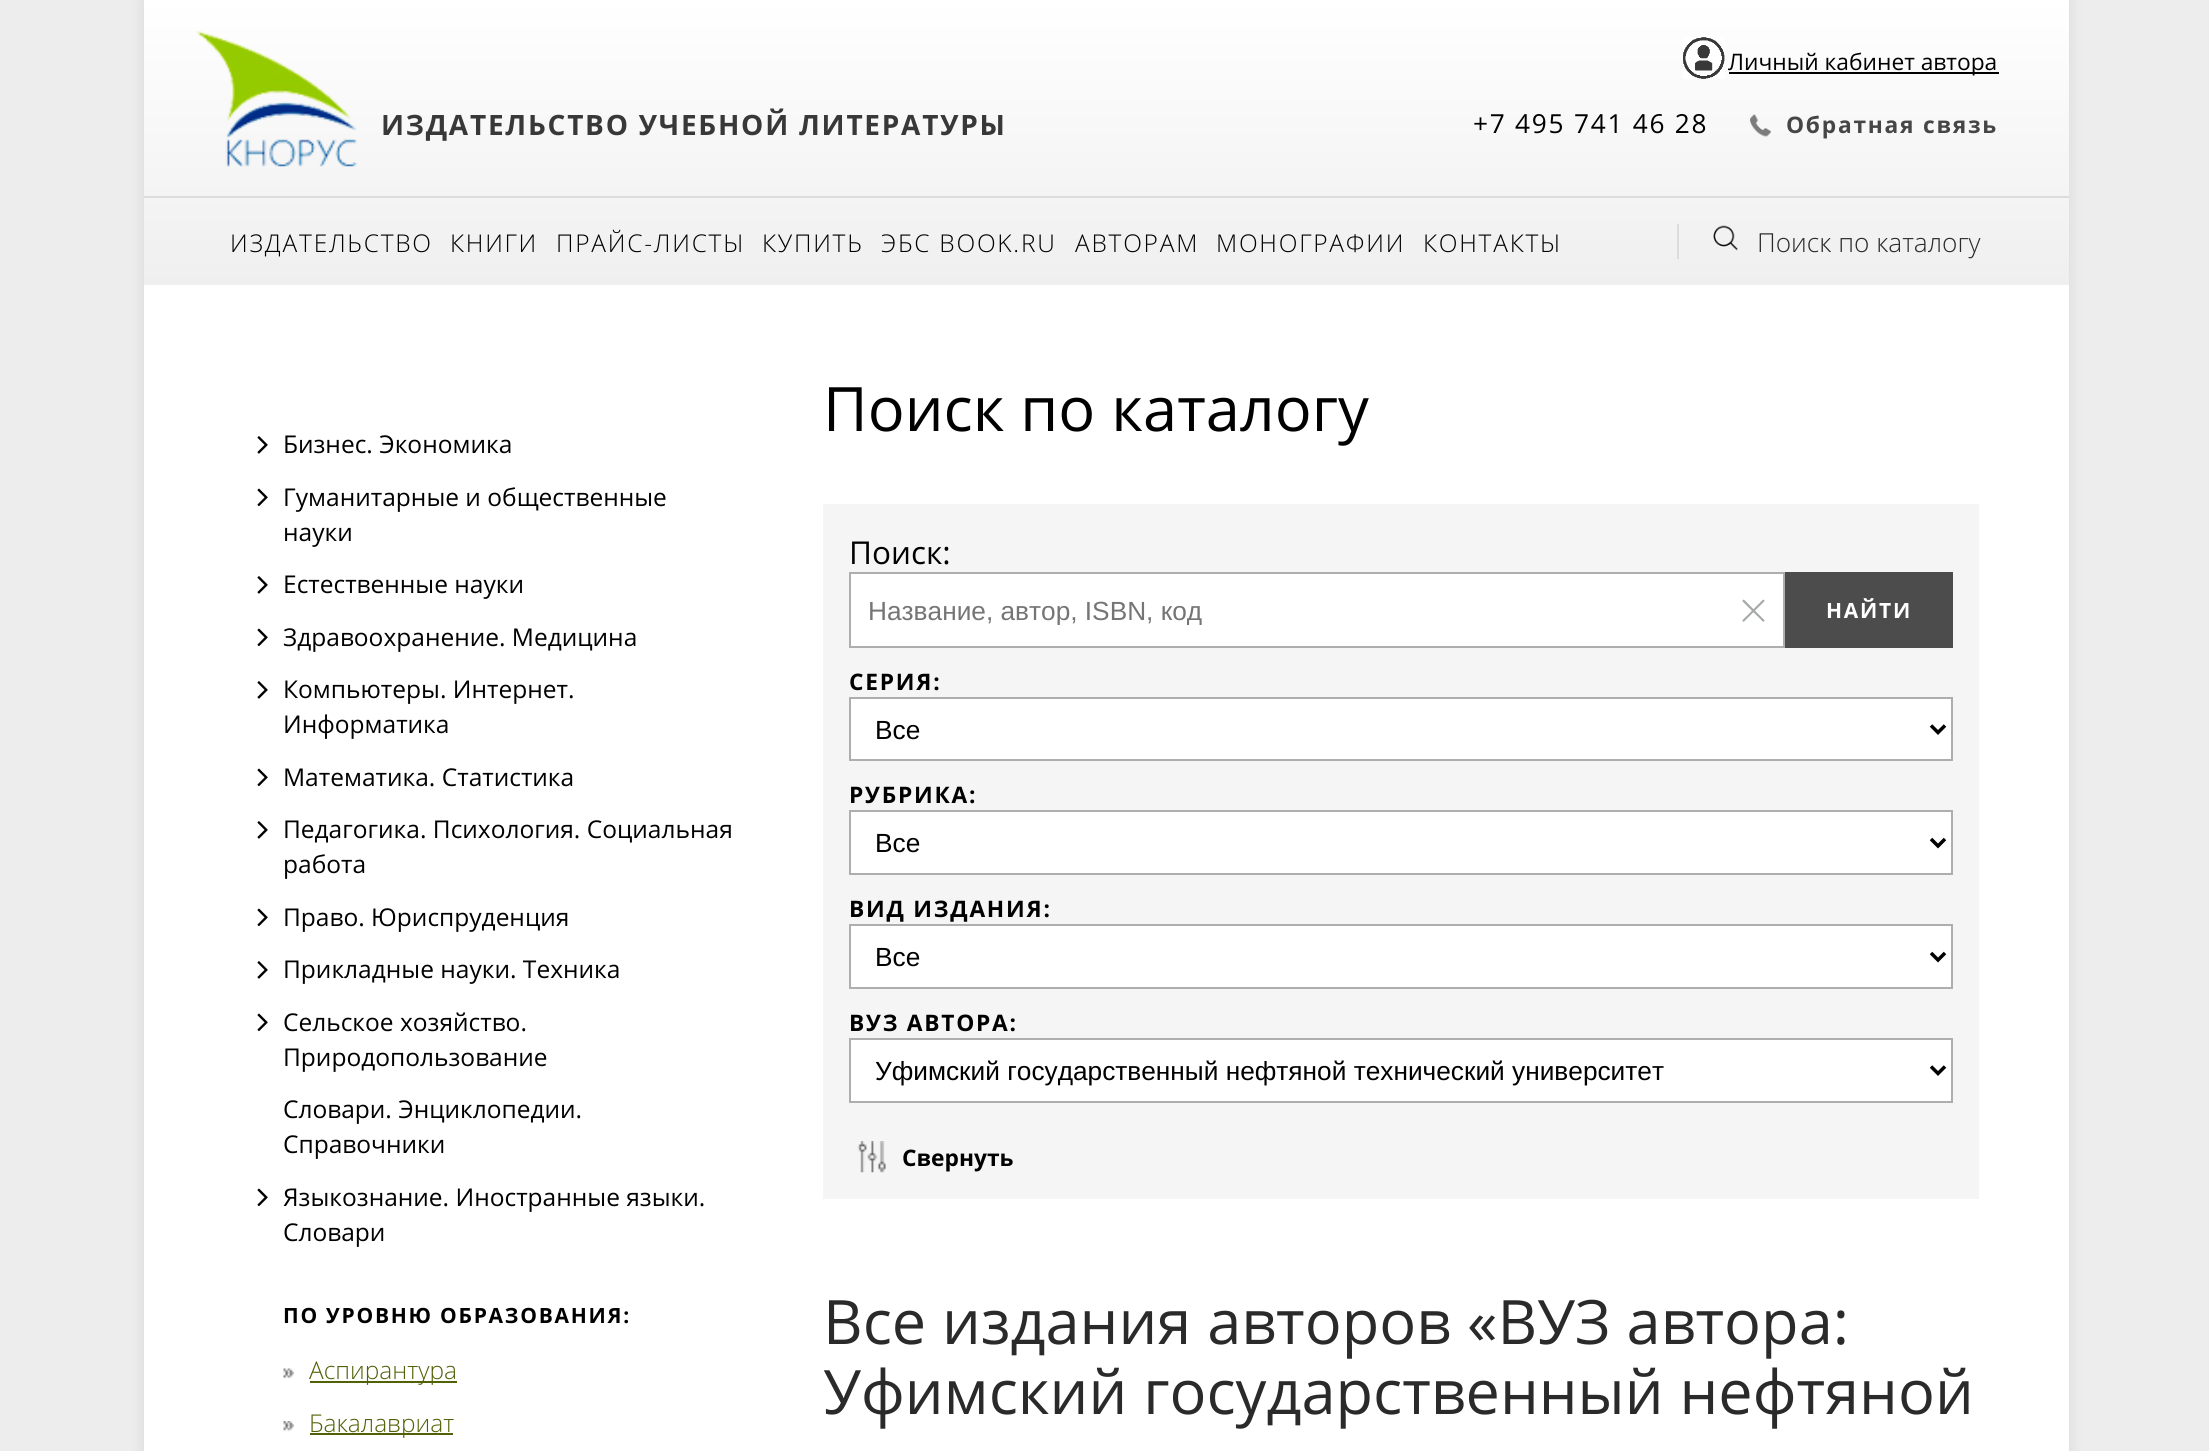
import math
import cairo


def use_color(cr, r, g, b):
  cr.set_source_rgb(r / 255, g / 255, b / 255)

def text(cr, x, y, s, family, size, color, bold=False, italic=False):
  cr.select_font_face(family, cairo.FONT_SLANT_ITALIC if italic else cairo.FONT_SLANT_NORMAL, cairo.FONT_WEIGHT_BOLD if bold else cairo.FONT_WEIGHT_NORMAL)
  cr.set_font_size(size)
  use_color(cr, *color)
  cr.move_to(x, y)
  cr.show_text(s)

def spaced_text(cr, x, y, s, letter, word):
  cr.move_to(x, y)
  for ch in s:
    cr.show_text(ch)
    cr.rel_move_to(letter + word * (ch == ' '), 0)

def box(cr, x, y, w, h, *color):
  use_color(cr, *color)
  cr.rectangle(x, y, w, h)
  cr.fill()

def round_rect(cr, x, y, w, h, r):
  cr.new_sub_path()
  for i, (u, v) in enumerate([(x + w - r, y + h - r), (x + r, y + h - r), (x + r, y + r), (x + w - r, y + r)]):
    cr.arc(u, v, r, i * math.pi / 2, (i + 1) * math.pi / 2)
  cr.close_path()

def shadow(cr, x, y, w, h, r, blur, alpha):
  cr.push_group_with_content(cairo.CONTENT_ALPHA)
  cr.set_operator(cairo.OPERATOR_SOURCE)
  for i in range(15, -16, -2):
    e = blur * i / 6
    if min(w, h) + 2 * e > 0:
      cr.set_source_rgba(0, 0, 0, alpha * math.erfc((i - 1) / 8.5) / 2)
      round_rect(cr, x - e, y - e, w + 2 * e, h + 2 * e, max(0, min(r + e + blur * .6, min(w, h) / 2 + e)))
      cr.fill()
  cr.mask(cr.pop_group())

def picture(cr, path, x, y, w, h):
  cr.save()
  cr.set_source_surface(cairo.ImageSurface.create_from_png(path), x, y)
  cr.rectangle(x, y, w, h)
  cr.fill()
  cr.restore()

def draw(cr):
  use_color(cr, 237, 237, 237)
  cr.paint()
  use_color(cr, 0, 0, 0)
  shadow(cr, 144, 0, 1925, 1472, 0, 7, 0.1)
  box(cr, 144, 285, 1925, 1166, 255, 255, 255)
  gradient = cairo.LinearGradient(1106, 0, 1106, 285)
  gradient.add_color_stop_rgba(0, 1, 1, 1, 1)
  gradient.add_color_stop_rgba(1, 0.937, 0.937, 0.937, 1)
  cr.set_source(gradient)
  cr.rectangle(144, 0, 1925, 285)
  cr.fill()
  box(cr, 144, 196, 1925, 2, 220, 220, 220)
  picture(cr, "img_01.png", 1683, 37, 42, 42)
  box(cr, 1729, 72, 270, 2, 0, 0, 0)
  picture(cr, "img_02.png", 196, 31, 161, 136)
  picture(cr, "img_03.png", 1750, 114, 21, 23)
  box(cr, 1677, 224, 2, 35, 220, 220, 220)
  picture(cr, "img_04.png", 1713, 225, 25, 26)
  picture(cr, "img_05.png", 257, 436, 11, 18)
  picture(cr, "img_06.png", 257, 488, 11, 19)
  picture(cr, "img_05.png", 257, 576, 11, 18)
  picture(cr, "img_07.png", 257, 628, 11, 19)
  picture(cr, "img_05.png", 257, 681, 11, 18)
  picture(cr, "img_07.png", 257, 768, 11, 19)
  picture(cr, "img_05.png", 257, 821, 11, 18)
  picture(cr, "img_07.png", 257, 908, 11, 19)
  picture(cr, "img_05.png", 257, 961, 11, 18)
  picture(cr, "img_07.png", 257, 1013, 11, 19)
  picture(cr, "img_07.png", 257, 1188, 11, 19)
  picture(cr, "img_08.png", 283, 1368, 11, 11)
  box(cr, 310, 1381, 147, 2, 81, 98, 6)
  picture(cr, "img_09.png", 283, 1421, 11, 11)
  box(cr, 310, 1433, 143, 2, 81, 98, 6)
  box(cr, 823, 504, 1156, 695, 245, 245, 245)
  box(cr, 851, 574, 932, 72, 255, 255, 255)
  box(cr, 849, 572, 936, 2, 174, 174, 174)
  box(cr, 849, 646, 877, 2, 174, 174, 174)
  box(cr, 849, 572, 2, 76, 174, 174, 174)
  picture(cr, "img_10.png", 1742, 599, 23, 23)
  box(cr, 1783, 572, 2, 76, 174, 174, 174)
  box(cr, 1726, 646, 59, 2, 174, 174, 174)
  box(cr, 1785, 572, 168, 76, 76, 76, 76)
  use_color(cr, 255, 255, 255)
  cr.rectangle(850, 698, 1102, 62)
  cr.fill_preserve()
  use_color(cr, 174, 174, 174)
  cr.stroke()
  cr.new_path()
  cr.move_to(1931, 725.5)
  cr.line_to(1938, 732.5)
  cr.line_to(1945, 725.5)
  use_color(cr, 0, 0, 0)
  cr.set_line_width(3.5)
  cr.stroke()
  use_color(cr, 255, 255, 255)
  cr.rectangle(850, 811, 1102, 63)
  cr.fill_preserve()
  use_color(cr, 174, 174, 174)
  cr.set_line_width(2)
  cr.stroke()
  cr.new_path()
  cr.move_to(1931, 839)
  cr.line_to(1938, 846)
  cr.line_to(1945, 839)
  use_color(cr, 0, 0, 0)
  cr.set_line_width(3.5)
  cr.stroke()
  use_color(cr, 255, 255, 255)
  cr.rectangle(850, 925, 1102, 63)
  cr.fill_preserve()
  use_color(cr, 174, 174, 174)
  cr.set_line_width(2)
  cr.stroke()
  cr.new_path()
  cr.move_to(1931, 953)
  cr.line_to(1938, 960)
  cr.line_to(1945, 953)
  use_color(cr, 0, 0, 0)
  cr.set_line_width(3.5)
  cr.stroke()
  use_color(cr, 255, 255, 255)
  cr.rectangle(850, 1039, 1102, 63)
  cr.fill_preserve()
  use_color(cr, 174, 174, 174)
  cr.set_line_width(2)
  cr.stroke()
  cr.new_path()
  cr.move_to(1931, 1066.5)
  cr.line_to(1938, 1073.5)
  cr.line_to(1945, 1066.5)
  use_color(cr, 0, 0, 0)
  cr.set_line_width(3.5)
  cr.stroke()
  picture(cr, "img_11.png", 857, 1141, 29, 32)
  text(cr, 1728, 70, "Личный кабинет автора", "Open Sans", 22.75, (0, 0, 0))
  cr.select_font_face("Open Sans", cairo.FONT_SLANT_NORMAL, cairo.FONT_WEIGHT_BOLD)
  cr.set_font_size(28)
  use_color(cr, 56, 56, 56)
  spaced_text(cr, 381, 135, "ИЗДАТЕЛЬСТВО УЧЕБНОЙ ЛИТЕРАТУРЫ", 1.75, 0)
  cr.select_font_face("Open Sans")
  cr.set_font_size(26.25)
  use_color(cr, 0, 0, 0)
  spaced_text(cr, 1473, 133, "+7 495 741 46 28", 1.75, 0)
  cr.select_font_face("Open Sans", cairo.FONT_SLANT_NORMAL, cairo.FONT_WEIGHT_BOLD)
  cr.set_font_size(22.75)
  use_color(cr, 70, 70, 70)
  spaced_text(cr, 1786, 133, "Обратная связь", 1.75, 0)
  cr.select_font_face("Open Sans Light")
  cr.set_font_size(24.5)
  use_color(cr, 0, 0, 0)
  spaced_text(cr, 230, 252, "ИЗДАТЕЛЬСТВО", 1.75, 0)
  spaced_text(cr, 450, 252, "КНИГИ", 1.75, 0)
  spaced_text(cr, 556, 252, "ПРАЙС-ЛИСТЫ", 1.75, 0)
  spaced_text(cr, 762, 252, "КУПИТЬ", 1.75, 0)
  spaced_text(cr, 881, 252, "ЭБС BOOK.RU", 1.75, 0)
  spaced_text(cr, 1075, 252, "АВТОРАМ", 1.75, 0)
  spaced_text(cr, 1216, 252, "МОНОГРАФИИ", 1.75, 0)
  spaced_text(cr, 1423, 252, "КОНТАКТЫ", 1.75, 0)
  text(cr, 1757, 252, "Поиск по каталогу", "Open Sans Light", 26.25, (42, 42, 42))
  text(cr, 283, 453, "Бизнес. Экономика", "Open Sans", 24.5, (0, 0, 0))
  text(cr, 283, 506, "Гуманитарные и общественные", "Open Sans", 24.5, (0, 0, 0))
  text(cr, 283, 541, "науки", "Open Sans", 24.5, (0, 0, 0))
  text(cr, 283, 593, "Естественные науки", "Open Sans", 24.5, (0, 0, 0))
  text(cr, 283, 646, "Здравоохранение. Медицина", "Open Sans", 24.5, (0, 0, 0))
  text(cr, 283, 698, "Компьютеры. Интернет.", "Open Sans", 24.5, (0, 0, 0))
  text(cr, 283, 733, "Информатика", "Open Sans", 24.5, (0, 0, 0))
  text(cr, 283, 786, "Математика. Статистика", "Open Sans", 24.5, (0, 0, 0))
  text(cr, 283, 838, "Педагогика. Психология. Социальная", "Open Sans", 24.5, (0, 0, 0))
  text(cr, 283, 873, "работа", "Open Sans", 24.5, (0, 0, 0))
  text(cr, 283, 926, "Право. Юриспруденция", "Open Sans", 24.5, (0, 0, 0))
  text(cr, 283, 978, "Прикладные науки. Техника", "Open Sans", 24.5, (0, 0, 0))
  text(cr, 283, 1031, "Сельское хозяйство.", "Open Sans", 24.5, (0, 0, 0))
  text(cr, 283, 1066, "Природопользование", "Open Sans", 24.5, (0, 0, 0))
  text(cr, 283, 1118, "Словари. Энциклопедии.", "Open Sans", 24.5, (0, 0, 0))
  text(cr, 283, 1153, "Справочники", "Open Sans", 24.5, (0, 0, 0))
  text(cr, 283, 1206, "Языкознание. Иностранные языки.", "Open Sans", 24.5, (0, 0, 0))
  text(cr, 283, 1241, "Словари", "Open Sans", 24.5, (0, 0, 0))
  cr.select_font_face("Open Sans", cairo.FONT_SLANT_NORMAL, cairo.FONT_WEIGHT_BOLD)
  cr.set_font_size(21)
  spaced_text(cr, 283, 1323, "ПО УРОВНЮ ОБРАЗОВАНИЯ:", 1.75, 0)
  text(cr, 309, 1379, "Аспирантура", "Open Sans Light", 24.5, (81, 98, 6))
  text(cr, 309, 1432, "Бакалавриат", "Open Sans Light", 24.5, (81, 98, 6))
  text(cr, 823, 431, "Поиск по каталогу", "Open Sans", 61.25, (0, 0, 0))
  text(cr, 849, 564, "Поиск:", "Open Sans", 31.5, (0, 0, 0))
  cr.save()
  cr.rectangle(868, 595, 840, 30)
  cr.clip()
  text(cr, 868, 620, "Название, автор, ISBN, код", "Liberation Sans", 26.25, (117, 117, 117))
  cr.restore()
  cr.select_font_face("Open Sans", cairo.FONT_SLANT_NORMAL, cairo.FONT_WEIGHT_BOLD)
  cr.set_font_size(21)
  use_color(cr, 255, 255, 255)
  spaced_text(cr, 1826, 618, "НАЙТИ", 1.75, 0)
  cr.set_font_size(22.75)
  use_color(cr, 0, 0, 0)
  spaced_text(cr, 849, 690, "СЕРИЯ:", 1.75, 0)
  text(cr, 875, 739, "Все", "Liberation Sans", 26.25, (0, 0, 0))
  cr.select_font_face("Open Sans", cairo.FONT_SLANT_NORMAL, cairo.FONT_WEIGHT_BOLD)
  cr.set_font_size(22.75)
  spaced_text(cr, 849, 803, "РУБРИКА:", 1.75, 0)
  text(cr, 875, 852, "Все", "Liberation Sans", 26.25, (0, 0, 0))
  cr.select_font_face("Open Sans", cairo.FONT_SLANT_NORMAL, cairo.FONT_WEIGHT_BOLD)
  cr.set_font_size(22.75)
  spaced_text(cr, 849, 917, "ВИД ИЗДАНИЯ:", 1.75, 0)
  text(cr, 875, 966, "Все", "Liberation Sans", 26.25, (0, 0, 0))
  cr.select_font_face("Open Sans", cairo.FONT_SLANT_NORMAL, cairo.FONT_WEIGHT_BOLD)
  cr.set_font_size(22.75)
  spaced_text(cr, 849, 1031, "ВУЗ АВТОРА:", 1.75, 0)
  text(cr, 875, 1080, "Уфимский государственный нефтяной технический университет", "Liberation Sans", 26.25, (0, 0, 0))
  text(cr, 902, 1166, "Свернуть", "Open Sans", 22.75, (0, 0, 0), bold=True)
  text(cr, 823, 1344, "Все издания авторов «ВУЗ автора:", "Open Sans", 61.25, (42, 42, 42))
  text(cr, 823, 1414, "Уфимский государственный нефтяной", "Open Sans", 61.25, (42, 42, 42))


surface = cairo.ImageSurface(cairo.FORMAT_RGB24, 2209, 1451)
cr = cairo.Context(surface)
options = cairo.FontOptions()
options.set_hint_metrics(cairo.HINT_METRICS_OFF)
options.set_hint_style(cairo.HINT_STYLE_NONE)
cr.set_font_options(options)
cr.set_miter_limit(4)
draw(cr)
surface.write_to_png("out.png")
